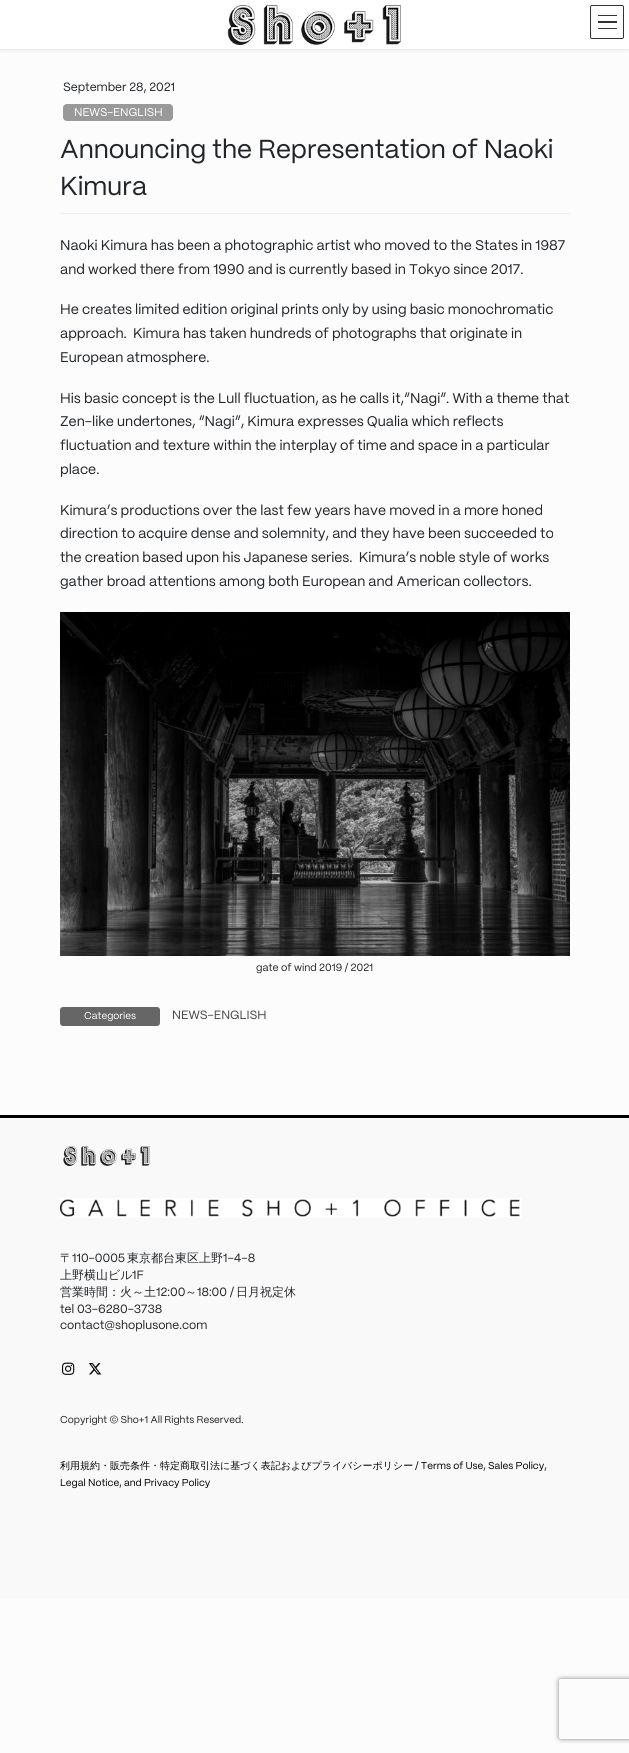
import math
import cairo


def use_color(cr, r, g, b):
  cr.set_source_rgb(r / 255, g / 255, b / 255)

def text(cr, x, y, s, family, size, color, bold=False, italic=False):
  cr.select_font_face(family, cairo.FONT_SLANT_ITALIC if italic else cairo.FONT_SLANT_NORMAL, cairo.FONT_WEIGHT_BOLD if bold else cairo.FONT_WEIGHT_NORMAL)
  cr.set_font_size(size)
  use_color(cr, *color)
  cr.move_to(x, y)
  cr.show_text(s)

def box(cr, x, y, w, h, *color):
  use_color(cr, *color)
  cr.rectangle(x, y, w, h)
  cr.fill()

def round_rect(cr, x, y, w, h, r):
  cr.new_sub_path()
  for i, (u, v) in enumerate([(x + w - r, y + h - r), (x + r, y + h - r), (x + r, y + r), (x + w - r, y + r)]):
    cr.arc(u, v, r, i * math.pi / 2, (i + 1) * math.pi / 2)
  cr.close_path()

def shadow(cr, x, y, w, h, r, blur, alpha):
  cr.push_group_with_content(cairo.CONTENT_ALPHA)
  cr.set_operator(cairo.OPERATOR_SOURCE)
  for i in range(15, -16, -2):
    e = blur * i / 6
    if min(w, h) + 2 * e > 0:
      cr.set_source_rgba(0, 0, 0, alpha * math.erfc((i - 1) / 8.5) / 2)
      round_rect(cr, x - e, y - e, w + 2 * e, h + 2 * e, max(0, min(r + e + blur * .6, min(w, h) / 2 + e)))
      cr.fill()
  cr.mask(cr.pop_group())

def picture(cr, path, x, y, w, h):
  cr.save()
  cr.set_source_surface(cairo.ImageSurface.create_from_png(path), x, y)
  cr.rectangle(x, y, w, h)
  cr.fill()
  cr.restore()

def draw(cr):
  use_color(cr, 252, 252, 252)
  cr.paint()
  use_color(cr, 0, 0, 0)
  shadow(cr, 0, 1, 629, 49, 0, 1.5, 0.1)
  box(cr, 0, 0, 629, 49, 255, 255, 255)
  picture(cr, "img_01.png", 227, 5, 174, 40)
  box(cr, 598, 15, 19, 1, 51, 51, 51)
  box(cr, 598, 21, 19, 2, 51, 51, 51)
  box(cr, 598, 28, 19, 1, 51, 51, 51)
  round_rect(cr, 590.5, 5.5, 33, 33, 1.5)
  cr.set_line_width(1)
  cr.stroke()
  box(cr, 60, 213, 510, 1, 239, 239, 239)
  use_color(cr, 153, 153, 153)
  round_rect(cr, 63, 104, 110, 17, 4)
  cr.fill()
  picture(cr, "img_02.png", 60, 612, 510, 344)
  use_color(cr, 102, 102, 102)
  round_rect(cr, 60, 1007, 100, 19, 3)
  cr.fill()
  box(cr, 0, 1118, 629, 481, 249, 249, 249)
  box(cr, 0, 1115, 629, 3, 0, 0, 0)
  picture(cr, "img_03.png", 63, 1146, 87, 20)
  picture(cr, "img_04.png", 60, 1198, 462, 20)
  picture(cr, "img_05.png", 62, 1362, 13, 13)
  picture(cr, "img_06.png", 88, 1363, 14, 12)
  cr.save()
  cr.set_fill_rule(cairo.FILL_RULE_EVEN_ODD)
  cr.new_path()
  cr.move_to(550, 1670)
  cr.line_to(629, 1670)
  cr.line_to(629, 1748)
  cr.line_to(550, 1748)
  cr.close_path()
  cr.move_to(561, 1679)
  cr.line_to(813, 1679)
  cr.curve_to(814, 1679, 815, 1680, 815, 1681)
  cr.line_to(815, 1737)
  cr.curve_to(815, 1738, 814, 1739, 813, 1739)
  cr.line_to(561, 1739)
  cr.curve_to(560, 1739, 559, 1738, 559, 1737)
  cr.line_to(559, 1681)
  cr.curve_to(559, 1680, 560, 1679, 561, 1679)
  cr.close_path()
  cr.clip()
  use_color(cr, 128, 128, 128)
  shadow(cr, 559, 1679, 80, 60, 2, 2.5, 1)
  cr.restore()
  text(cr, 63, 91, "September 28, 2021", "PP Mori", 12, (33, 37, 41))
  text(cr, 74, 116, "NEWS-ENGLISH", "PP Mori", 11.25, (255, 255, 255))
  text(cr, 60, 158, "Announcing the Representation of Naoki", "PP Mori", 26, (33, 37, 41))
  text(cr, 60, 195, "Kimura", "PP Mori", 26, (33, 37, 41))
  text(cr, 60, 250, "Naoki Kimura has been a photographic artist who moved to the States in 1987", "PP Mori", 14, (33, 37, 41))
  text(cr, 60, 274, "and worked there from 1990 and is currently based in Tokyo since 2017.", "PP Mori", 14, (33, 37, 41))
  text(cr, 60, 314, "He creates limited edition original prints only by using basic monochromatic", "PP Mori", 14, (33, 37, 41))
  text(cr, 60, 338, "approach.  Kimura has taken hundreds of photographs that originate in", "PP Mori", 14, (33, 37, 41))
  text(cr, 60, 362, "European atmosphere.", "PP Mori", 14, (33, 37, 41))
  text(cr, 60, 403, "His basic concept is the Lull fluctuation, as he calls it,“Nagi”. With a theme that", "PP Mori", 14, (33, 37, 41))
  text(cr, 60, 426, "Zen-like undertones, “Nagi”, Kimura expresses Qualia which reflects", "PP Mori", 14, (33, 37, 41))
  text(cr, 60, 450, "fluctuation and texture within the interplay of time and space in a particular", "PP Mori", 14, (33, 37, 41))
  text(cr, 60, 474, "place.", "PP Mori", 14, (33, 37, 41))
  text(cr, 60, 515, "Kimura’s productions over the last few years have moved in a more honed", "PP Mori", 14, (33, 37, 41))
  text(cr, 60, 538, "direction to acquire dense and solemnity, and they have been succeeded to", "PP Mori", 14, (33, 37, 41))
  text(cr, 60, 562, "the creation based upon his Japanese series.  Kimura’s noble style of works", "PP Mori", 14, (33, 37, 41))
  text(cr, 60, 586, "gather broad attentions among both European and American collectors.", "PP Mori", 14, (33, 37, 41))
  text(cr, 256, 971, "gate of wind 2019 / 2021", "PP Mori", 10.5, (33, 37, 41))
  text(cr, 84, 1019, "Categories", "PP Mori", 10, (255, 255, 255))
  text(cr, 172, 1019, "NEWS-ENGLISH", "PP Mori", 12, (70, 70, 70))
  text(cr, 60, 1262, "〒", "WenQuanYi Zen Hei Medium", 12, (33, 37, 41))
  text(cr, 72, 1262, "110-0005", "PP Mori", 12, (33, 37, 41))
  text(cr, 127, 1262, "東京都台東区上野", "WenQuanYi Zen Hei Medium", 12, (33, 37, 41))
  text(cr, 223, 1262, "1−4−8", "PP Mori", 12, (33, 37, 41))
  text(cr, 60, 1279, "上野横山ビル", "WenQuanYi Zen Hei Medium", 12, (33, 37, 41))
  text(cr, 132, 1279, "1F", "PP Mori", 12, (33, 37, 41))
  text(cr, 60, 1296, "営業時間：火～土", "WenQuanYi Zen Hei Medium", 12, (33, 37, 41))
  text(cr, 156, 1296, "12:00", "PP Mori", 12, (33, 37, 41))
  text(cr, 185, 1296, "～", "WenQuanYi Zen Hei Medium", 12, (33, 37, 41))
  text(cr, 197, 1296, "18:00 /", "PP Mori", 12, (33, 37, 41))
  text(cr, 236, 1296, "日月祝定休", "WenQuanYi Zen Hei Medium", 12, (33, 37, 41))
  text(cr, 60, 1313, "tel 03-6280-3738", "PP Mori", 12, (33, 37, 41))
  text(cr, 60, 1329, "contact@shoplusone.com", "PP Mori", 12, (33, 37, 41))
  text(cr, 60, 1423, "Copyright © Sho+1 All Rights Reserved.", "PP Mori", 10, (33, 37, 41))
  text(cr, 60, 1469, "利用規約・販売条件・特定商取引法に基づく表記およびプライバシーポリシー", "WenQuanYi Zen Hei Medium", 10, (0, 0, 0))
  text(cr, 415, 1469, "/ Terms of Use, Sales Policy,", "PP Mori", 10, (0, 0, 0))
  text(cr, 60, 1486, "Legal Notice, and Privacy Policy", "PP Mori", 10, (0, 0, 0))


surface = cairo.ImageSurface(cairo.FORMAT_RGB24, 629, 1753)
cr = cairo.Context(surface)
options = cairo.FontOptions()
options.set_hint_metrics(cairo.HINT_METRICS_OFF)
options.set_hint_style(cairo.HINT_STYLE_NONE)
cr.set_font_options(options)
cr.set_miter_limit(4)
draw(cr)
surface.write_to_png("out.png")
